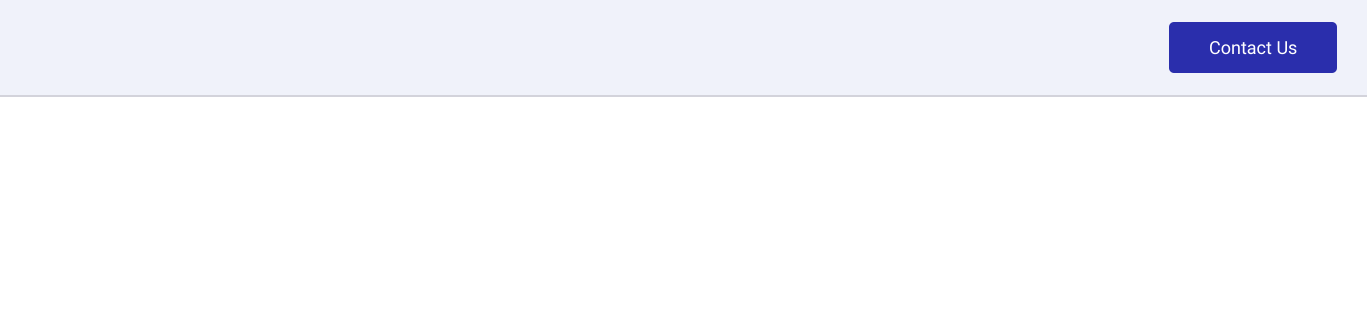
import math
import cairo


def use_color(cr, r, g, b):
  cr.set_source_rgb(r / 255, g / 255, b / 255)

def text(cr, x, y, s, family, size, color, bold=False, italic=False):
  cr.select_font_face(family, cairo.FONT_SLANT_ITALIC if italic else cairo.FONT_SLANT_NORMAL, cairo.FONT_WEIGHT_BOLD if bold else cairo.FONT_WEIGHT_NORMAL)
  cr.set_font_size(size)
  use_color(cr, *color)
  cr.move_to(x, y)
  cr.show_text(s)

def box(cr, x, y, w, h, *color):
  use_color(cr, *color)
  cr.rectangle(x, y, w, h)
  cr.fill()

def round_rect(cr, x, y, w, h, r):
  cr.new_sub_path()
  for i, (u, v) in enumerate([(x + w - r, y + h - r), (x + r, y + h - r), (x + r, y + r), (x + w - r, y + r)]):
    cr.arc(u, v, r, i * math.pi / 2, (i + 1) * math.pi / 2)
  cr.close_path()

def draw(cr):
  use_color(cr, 255, 255, 255)
  cr.paint()
  box(cr, 0, 0, 1367, 95, 240, 242, 250)
  box(cr, 0, 95, 1367, 2, 211, 211, 219)
  use_color(cr, 42, 46, 172)
  round_rect(cr, 1169, 22, 168, 51, 5)
  cr.fill()
  text(cr, 1209, 54, "Contact Us", "Roboto", 18, (255, 255, 255))


surface = cairo.ImageSurface(cairo.FORMAT_RGB24, 1367, 310)
cr = cairo.Context(surface)
options = cairo.FontOptions()
options.set_hint_metrics(cairo.HINT_METRICS_OFF)
options.set_hint_style(cairo.HINT_STYLE_NONE)
cr.set_font_options(options)
cr.set_miter_limit(4)
draw(cr)
surface.write_to_png("out.png")
